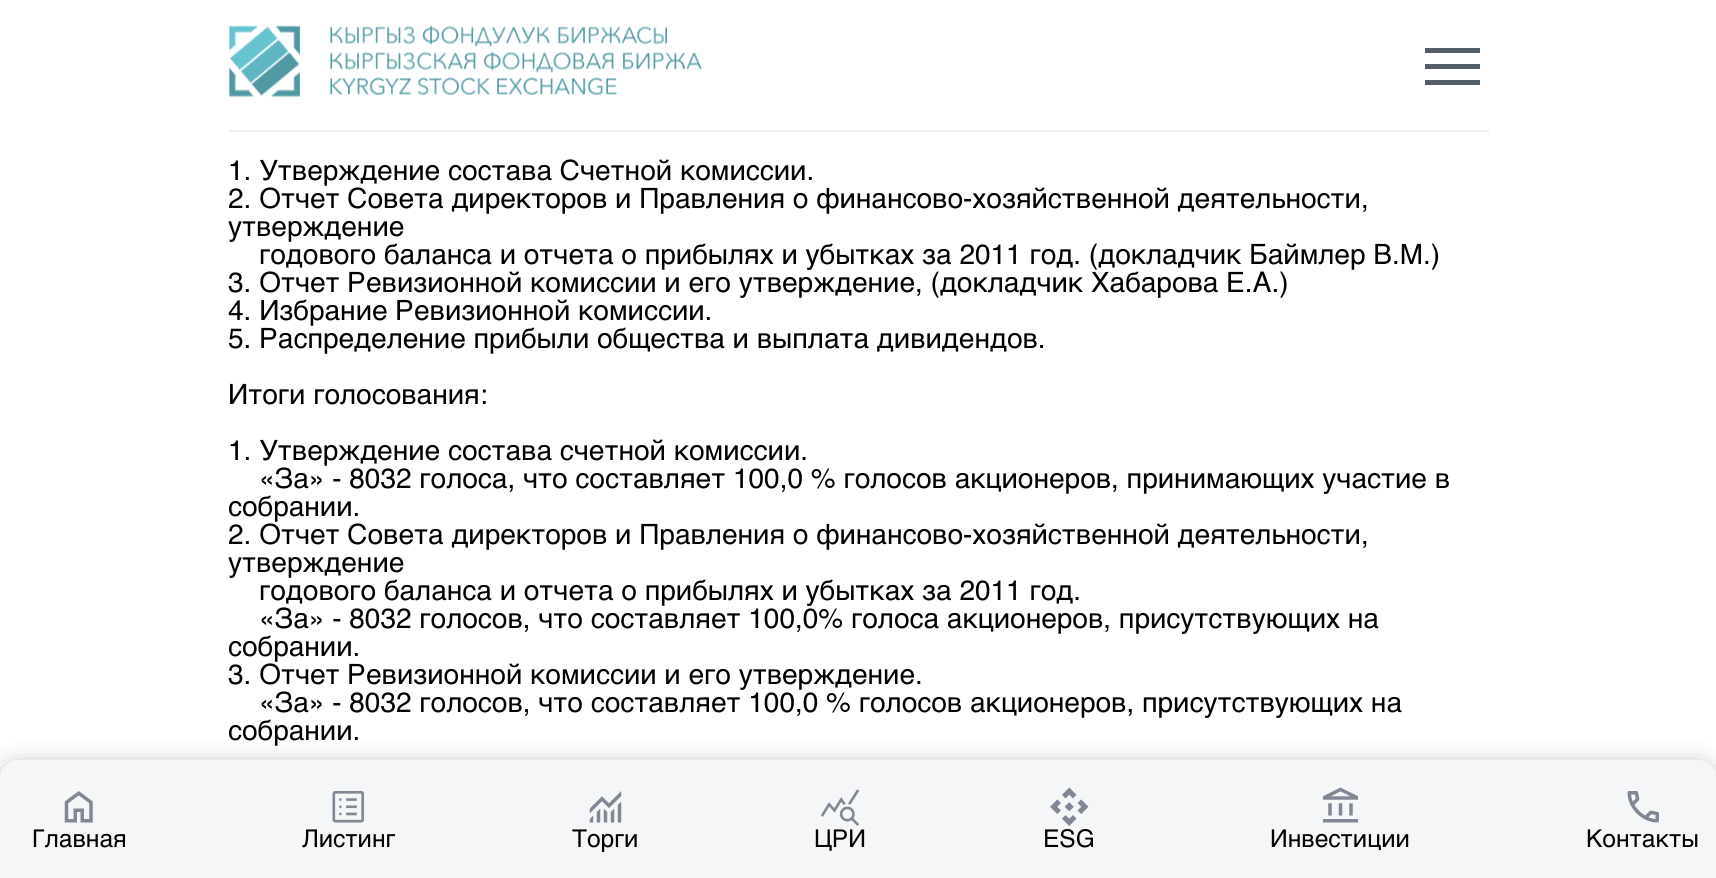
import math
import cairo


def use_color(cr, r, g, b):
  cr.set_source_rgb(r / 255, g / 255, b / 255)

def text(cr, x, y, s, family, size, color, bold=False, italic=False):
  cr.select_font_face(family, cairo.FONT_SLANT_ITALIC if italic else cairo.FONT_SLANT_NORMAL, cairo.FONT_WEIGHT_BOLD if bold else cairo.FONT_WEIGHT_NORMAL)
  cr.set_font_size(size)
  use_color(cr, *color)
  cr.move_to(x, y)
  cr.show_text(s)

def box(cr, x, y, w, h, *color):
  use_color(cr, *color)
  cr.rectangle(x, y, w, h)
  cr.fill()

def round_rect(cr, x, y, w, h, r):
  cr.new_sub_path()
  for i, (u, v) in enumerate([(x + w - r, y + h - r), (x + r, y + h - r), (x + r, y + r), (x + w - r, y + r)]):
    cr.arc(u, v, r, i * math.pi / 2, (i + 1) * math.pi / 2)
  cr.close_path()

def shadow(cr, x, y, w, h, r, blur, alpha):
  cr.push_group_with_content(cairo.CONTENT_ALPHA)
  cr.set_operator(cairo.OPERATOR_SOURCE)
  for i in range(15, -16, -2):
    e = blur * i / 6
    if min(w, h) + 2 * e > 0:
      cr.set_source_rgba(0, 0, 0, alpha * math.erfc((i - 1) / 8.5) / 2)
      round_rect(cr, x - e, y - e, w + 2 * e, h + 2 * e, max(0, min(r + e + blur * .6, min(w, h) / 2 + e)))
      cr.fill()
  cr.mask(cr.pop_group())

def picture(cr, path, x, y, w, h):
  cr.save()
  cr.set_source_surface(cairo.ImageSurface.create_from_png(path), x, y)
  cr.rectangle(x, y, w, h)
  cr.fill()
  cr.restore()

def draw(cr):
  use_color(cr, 255, 255, 255)
  cr.paint()
  box(cr, 229, 130, 1260, 2, 235, 238, 240)
  picture(cr, "img_01.png", 229, 25, 473, 72)
  use_color(cr, 85, 95, 105)
  cr.new_path()
  cr.move_to(1425, 85)
  cr.line_to(1425, 80)
  cr.line_to(1480, 80)
  cr.line_to(1480, 85)
  cr.close_path()
  cr.move_to(1425, 69)
  cr.line_to(1425, 64)
  cr.line_to(1480, 64)
  cr.line_to(1480, 69)
  cr.close_path()
  cr.move_to(1425, 53)
  cr.line_to(1425, 48)
  cr.line_to(1480, 48)
  cr.line_to(1480, 53)
  cr.close_path()
  cr.fill()
  use_color(cr, 0, 0, 0)
  shadow(cr, 0, 768, 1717, 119, 18, 13, 0.35)
  use_color(cr, 245, 246, 247)
  cr.new_path()
  cr.move_to(18, 760)
  cr.line_to(1699, 760)
  cr.curve_to(1709, 760, 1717, 768, 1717, 778)
  cr.line_to(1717, 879)
  cr.line_to(0, 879)
  cr.line_to(0, 778)
  cr.curve_to(0, 768, 8, 760, 18, 760)
  cr.close_path()
  cr.fill()
  picture(cr, "img_02.png", 64, 791, 29, 32)
  picture(cr, "img_03.png", 332, 791, 32, 32)
  picture(cr, "img_04.png", 589, 791, 33, 32)
  picture(cr, "img_05.png", 820, 789, 40, 37)
  picture(cr, "img_06.png", 1050, 787, 39, 39)
  picture(cr, "img_07.png", 1323, 787, 35, 36)
  picture(cr, "img_08.png", 1627, 791, 32, 32)
  text(cr, 228, 180, "1. Утверждение состава Счетной комиссии.", "Helvetica", 28, (0, 0, 0))
  text(cr, 228, 208, "2. Отчет Совета директоров и Правления о финансово-хозяйственной деятельности,", "Helvetica", 28, (0, 0, 0))
  text(cr, 228, 236, "утверждение", "Helvetica", 28, (0, 0, 0))
  text(cr, 259, 264, "годового баланса и отчета о прибылях и убытках за 2011 год. (докладчик Баймлер В.М.)", "Helvetica", 28, (0, 0, 0))
  text(cr, 228, 292, "3. Отчет Ревизионной комиссии и его утверждение, (докладчик Хабарова Е.А.)", "Helvetica", 28, (0, 0, 0))
  text(cr, 228, 320, "4. Избрание Ревизионной комиссии.", "Helvetica", 28, (0, 0, 0))
  text(cr, 228, 348, "5. Распределение прибыли общества и выплата дивидендов.", "Helvetica", 28, (0, 0, 0))
  text(cr, 228, 404, "Итоги голосования:", "Helvetica", 28, (0, 0, 0))
  text(cr, 228, 460, "1. Утверждение состава счетной комиссии.", "Helvetica", 28, (0, 0, 0))
  text(cr, 259, 488, "«За» - 8032 голоса, что составляет 100,0 % голосов акционеров, принимающих участие в", "Helvetica", 28, (0, 0, 0))
  text(cr, 228, 516, "собрании.", "Helvetica", 28, (0, 0, 0))
  text(cr, 228, 544, "2. Отчет Совета директоров и Правления о финансово-хозяйственной деятельности,", "Helvetica", 28, (0, 0, 0))
  text(cr, 228, 572, "утверждение", "Helvetica", 28, (0, 0, 0))
  text(cr, 259, 600, "годового баланса и отчета о прибылях и убытках за 2011 год.", "Helvetica", 28, (0, 0, 0))
  text(cr, 259, 628, "«За» - 8032 голосов, что составляет 100,0% голоса акционеров, присутствующих на", "Helvetica", 28, (0, 0, 0))
  text(cr, 228, 656, "собрании.", "Helvetica", 28, (0, 0, 0))
  text(cr, 228, 684, "3. Отчет Ревизионной комиссии и его утверждение.", "Helvetica", 28, (0, 0, 0))
  text(cr, 259, 712, "«За» - 8032 голосов, что составляет 100,0 % голосов акционеров, присутствующих на", "Helvetica", 28, (0, 0, 0))
  text(cr, 228, 740, "собрании.", "Helvetica", 28, (0, 0, 0))
  text(cr, 32, 847, "Главная", "Helvetica", 24.5, (0, 0, 0))
  text(cr, 302, 847, "Листинг", "Helvetica", 24.5, (0, 0, 0))
  text(cr, 572, 847, "Торги", "Helvetica", 24.5, (0, 0, 0))
  text(cr, 814, 847, "ЦРИ", "Helvetica", 24.5, (0, 0, 0))
  text(cr, 1043, 847, "ESG", "Helvetica", 24.5, (0, 0, 0))
  text(cr, 1270, 847, "Инвестиции", "Helvetica", 24.5, (0, 0, 0))
  text(cr, 1586, 847, "Контакты", "Helvetica", 24.5, (0, 0, 0))


surface = cairo.ImageSurface(cairo.FORMAT_RGB24, 1716, 878)
cr = cairo.Context(surface)
options = cairo.FontOptions()
options.set_hint_metrics(cairo.HINT_METRICS_OFF)
options.set_hint_style(cairo.HINT_STYLE_NONE)
cr.set_font_options(options)
cr.set_miter_limit(4)
draw(cr)
surface.write_to_png("out.png")
